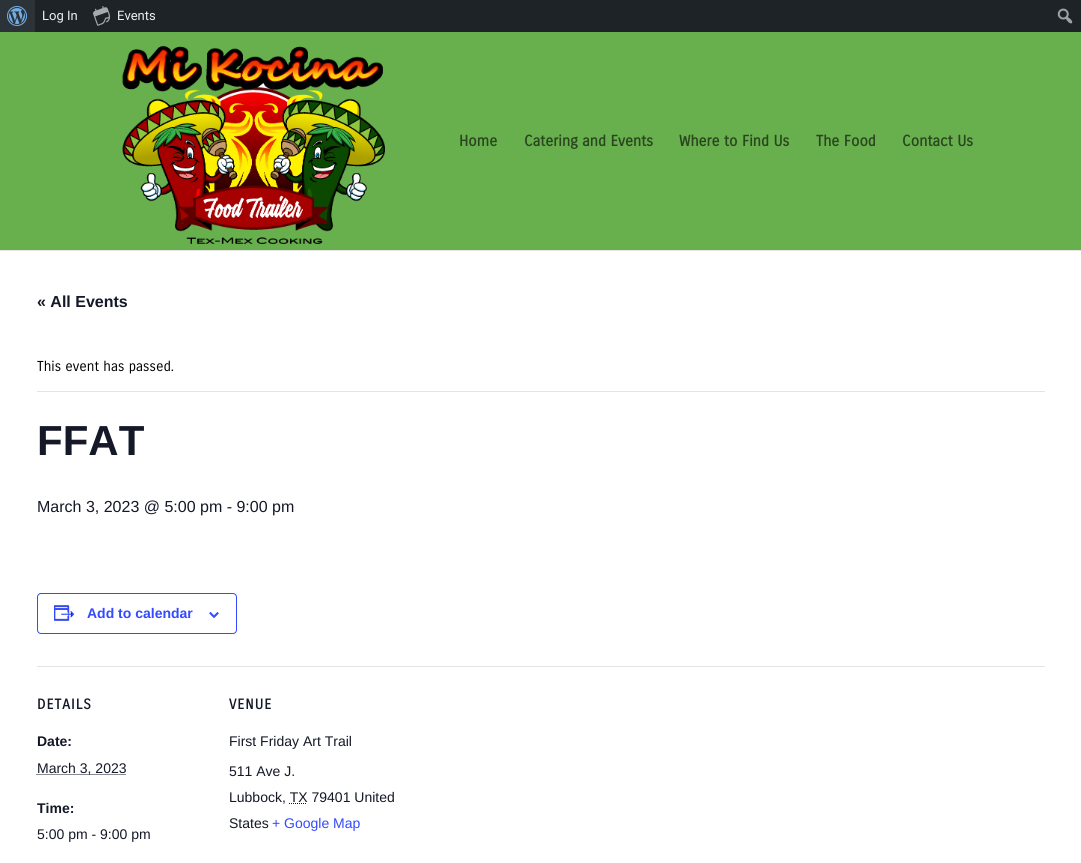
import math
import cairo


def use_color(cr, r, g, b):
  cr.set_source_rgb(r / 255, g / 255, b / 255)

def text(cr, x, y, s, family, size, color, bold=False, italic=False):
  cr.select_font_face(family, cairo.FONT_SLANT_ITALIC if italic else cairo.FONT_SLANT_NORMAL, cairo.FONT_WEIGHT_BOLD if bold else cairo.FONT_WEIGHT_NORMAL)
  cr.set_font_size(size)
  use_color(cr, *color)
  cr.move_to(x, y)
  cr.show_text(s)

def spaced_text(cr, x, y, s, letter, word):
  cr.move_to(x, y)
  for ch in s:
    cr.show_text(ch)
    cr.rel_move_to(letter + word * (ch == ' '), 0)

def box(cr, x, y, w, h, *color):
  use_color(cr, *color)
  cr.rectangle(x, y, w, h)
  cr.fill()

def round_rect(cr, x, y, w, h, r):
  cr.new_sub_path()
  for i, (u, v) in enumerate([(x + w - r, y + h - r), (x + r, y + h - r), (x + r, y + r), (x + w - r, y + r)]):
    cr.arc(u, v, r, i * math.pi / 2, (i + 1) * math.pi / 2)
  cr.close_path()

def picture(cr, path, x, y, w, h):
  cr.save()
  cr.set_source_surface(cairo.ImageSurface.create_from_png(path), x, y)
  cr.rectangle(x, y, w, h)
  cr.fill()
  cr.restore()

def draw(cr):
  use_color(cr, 255, 255, 255)
  cr.paint()
  box(cr, 35, 0, 1046, 32, 29, 35, 39)
  box(cr, 0, 0, 35, 32, 44, 51, 56)
  picture(cr, "img_01.png", 7, 6, 20, 20)
  picture(cr, "img_02.png", 93, 6, 17, 20)
  picture(cr, "img_03.png", 1057, 8, 16, 16)
  box(cr, 0, 250, 1081, 1, 230, 230, 230)
  box(cr, 0, 32, 1081, 218, 104, 176, 77)
  picture(cr, "img_04.png", 122, 46, 263, 198)
  box(cr, 37, 391, 1008, 1, 228, 228, 228)
  round_rect(cr, 37.5, 593.5, 199, 40, 3.5)
  use_color(cr, 51, 74, 255)
  cr.set_line_width(1)
  cr.stroke()
  picture(cr, "img_05.png", 54, 605, 21, 16)
  picture(cr, "img_06.png", 209, 612, 10, 6)
  box(cr, 37, 666, 1008, 1, 228, 228, 228)
  cr.new_path()
  cr.move_to(36.5, 774.5)
  cr.line_to(126, 774.5)
  use_color(cr, 20, 24, 39)
  cr.set_dash([1, 1])
  cr.stroke()
  cr.new_path()
  cr.move_to(289, 803.5)
  cr.line_to(307, 803.5)
  cr.stroke()
  text(cr, 42, 20, "Log In", "Roboto", 13, (240, 240, 241))
  text(cr, 117, 20, "Events", "Roboto", 13, (240, 240, 241))
  text(cr, 459, 146, "Home", "Carrois Gothic", 15, (42, 70, 31), bold=True)
  text(cr, 524, 146, "Catering and Events", "Carrois Gothic", 15, (42, 70, 31), bold=True)
  text(cr, 679, 146, "Where to Find Us", "Carrois Gothic", 15, (42, 70, 31), bold=True)
  text(cr, 816, 146, "The Food", "Carrois Gothic", 15, (42, 70, 31), bold=True)
  text(cr, 902, 146, "Contact Us", "Carrois Gothic", 15, (42, 70, 31), bold=True)
  text(cr, 37, 307, "« All Events", "Liberation Sans", 16, (20, 24, 39), bold=True)
  text(cr, 37, 371, "This event has passed.", "Carrois Gothic", 14, (0, 0, 0))
  text(cr, 37, 455, "FFAT", "Liberation Sans", 42, (20, 24, 39), bold=True)
  text(cr, 37, 512, "March 3, 2023 @ 5:00 pm - 9:00 pm", "Liberation Sans", 16, (20, 24, 39))
  text(cr, 87, 618, "Add to calendar", "Liberation Sans", 14, (51, 74, 255), bold=True)
  cr.select_font_face("Carrois Gothic SC", cairo.FONT_SLANT_NORMAL, cairo.FONT_WEIGHT_BOLD)
  use_color(cr, 20, 24, 39)
  spaced_text(cr, 37, 709, "DETAILS", 1, 0)
  text(cr, 37, 746, "Date:", "Liberation Sans", 14, (20, 24, 39), bold=True)
  text(cr, 37, 773, "March 3, 2023", "Liberation Sans", 14, (20, 24, 39))
  text(cr, 37, 813, "Time:", "Liberation Sans", 14, (20, 24, 39), bold=True)
  text(cr, 37, 839, "5:00 pm - 9:00 pm", "Liberation Sans", 14, (20, 24, 39))
  cr.select_font_face("Carrois Gothic SC", cairo.FONT_SLANT_NORMAL, cairo.FONT_WEIGHT_BOLD)
  spaced_text(cr, 229, 709, "VENUE", 1, 0)
  text(cr, 229, 746, "First Friday Art Trail", "Liberation Sans", 14, (20, 24, 39))
  text(cr, 229, 776, "511 Ave J.", "Liberation Sans", 14, (20, 24, 39))
  text(cr, 229, 802, "Lubbock, TX 79401 United", "Liberation Sans", 14, (20, 24, 39))
  text(cr, 229, 828, "States", "Liberation Sans", 14, (20, 24, 39))
  text(cr, 272, 828, "+ Google Map", "Liberation Sans", 14, (51, 74, 255))


surface = cairo.ImageSurface(cairo.FORMAT_RGB24, 1081, 863)
cr = cairo.Context(surface)
options = cairo.FontOptions()
options.set_hint_metrics(cairo.HINT_METRICS_OFF)
options.set_hint_style(cairo.HINT_STYLE_NONE)
cr.set_font_options(options)
cr.set_miter_limit(4)
draw(cr)
surface.write_to_png("out.png")
